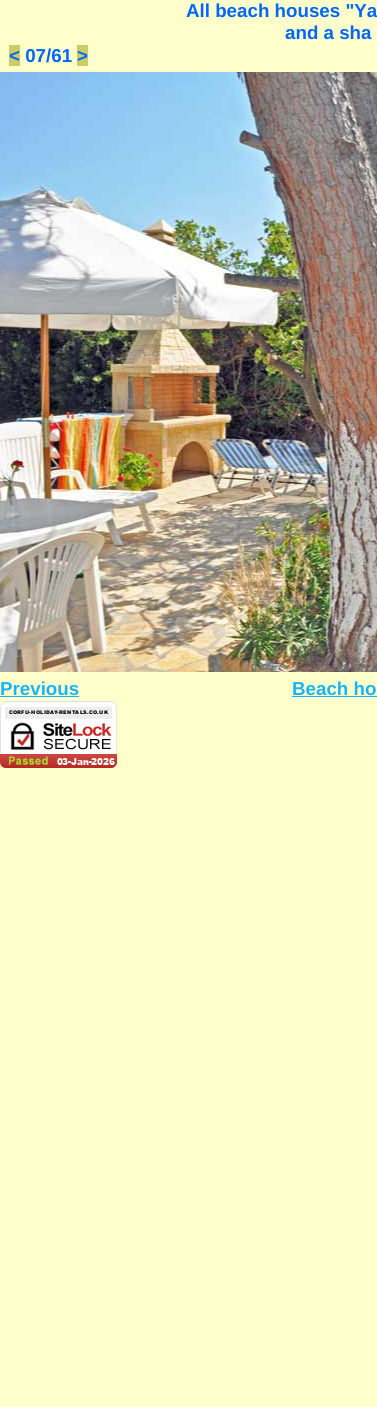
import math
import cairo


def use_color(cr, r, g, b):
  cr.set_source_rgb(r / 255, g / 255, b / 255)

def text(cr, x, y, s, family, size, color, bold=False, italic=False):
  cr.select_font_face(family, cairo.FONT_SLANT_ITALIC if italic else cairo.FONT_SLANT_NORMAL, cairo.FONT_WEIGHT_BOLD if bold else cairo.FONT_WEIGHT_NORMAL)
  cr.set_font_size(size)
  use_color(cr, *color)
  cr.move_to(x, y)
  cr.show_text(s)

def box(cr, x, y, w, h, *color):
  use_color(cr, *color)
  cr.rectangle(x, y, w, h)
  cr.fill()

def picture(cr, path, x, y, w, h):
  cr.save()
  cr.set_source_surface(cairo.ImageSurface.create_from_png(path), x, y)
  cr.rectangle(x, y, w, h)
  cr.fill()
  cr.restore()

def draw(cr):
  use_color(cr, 255, 255, 204)
  cr.paint()
  box(cr, 9, 45, 11, 21, 204, 204, 102)
  box(cr, 77, 45, 11, 21, 204, 204, 102)
  picture(cr, "img_01.png", 0, 72, 377, 600)
  box(cr, 0, 696, 79, 1, 24, 180, 255)
  box(cr, 292, 696, 85, 1, 24, 180, 255)
  picture(cr, "img_02.png", 0, 701, 117, 67)
  text(cr, 186, 17, "All beach houses \"Ya", "Liberation Sans", 18.75, (0, 102, 255), bold=True)
  text(cr, 285, 39, "and a sha", "Liberation Sans", 18.75, (0, 102, 255), bold=True)
  text(cr, 9, 62, "< 07/61", "Liberation Sans", 18.75, (0, 102, 255), bold=True)
  text(cr, 77, 62, ">", "Liberation Sans", 18.75, (0, 102, 255), bold=True)
  text(cr, 0, 695, "Previous", "Liberation Sans", 18.75, (24, 180, 255), bold=True)
  text(cr, 292, 695, "Beach ho", "Liberation Sans", 18.75, (24, 180, 255), bold=True)


surface = cairo.ImageSurface(cairo.FORMAT_RGB24, 377, 1407)
cr = cairo.Context(surface)
options = cairo.FontOptions()
options.set_hint_metrics(cairo.HINT_METRICS_OFF)
options.set_hint_style(cairo.HINT_STYLE_NONE)
cr.set_font_options(options)
cr.set_miter_limit(4)
draw(cr)
surface.write_to_png("out.png")
